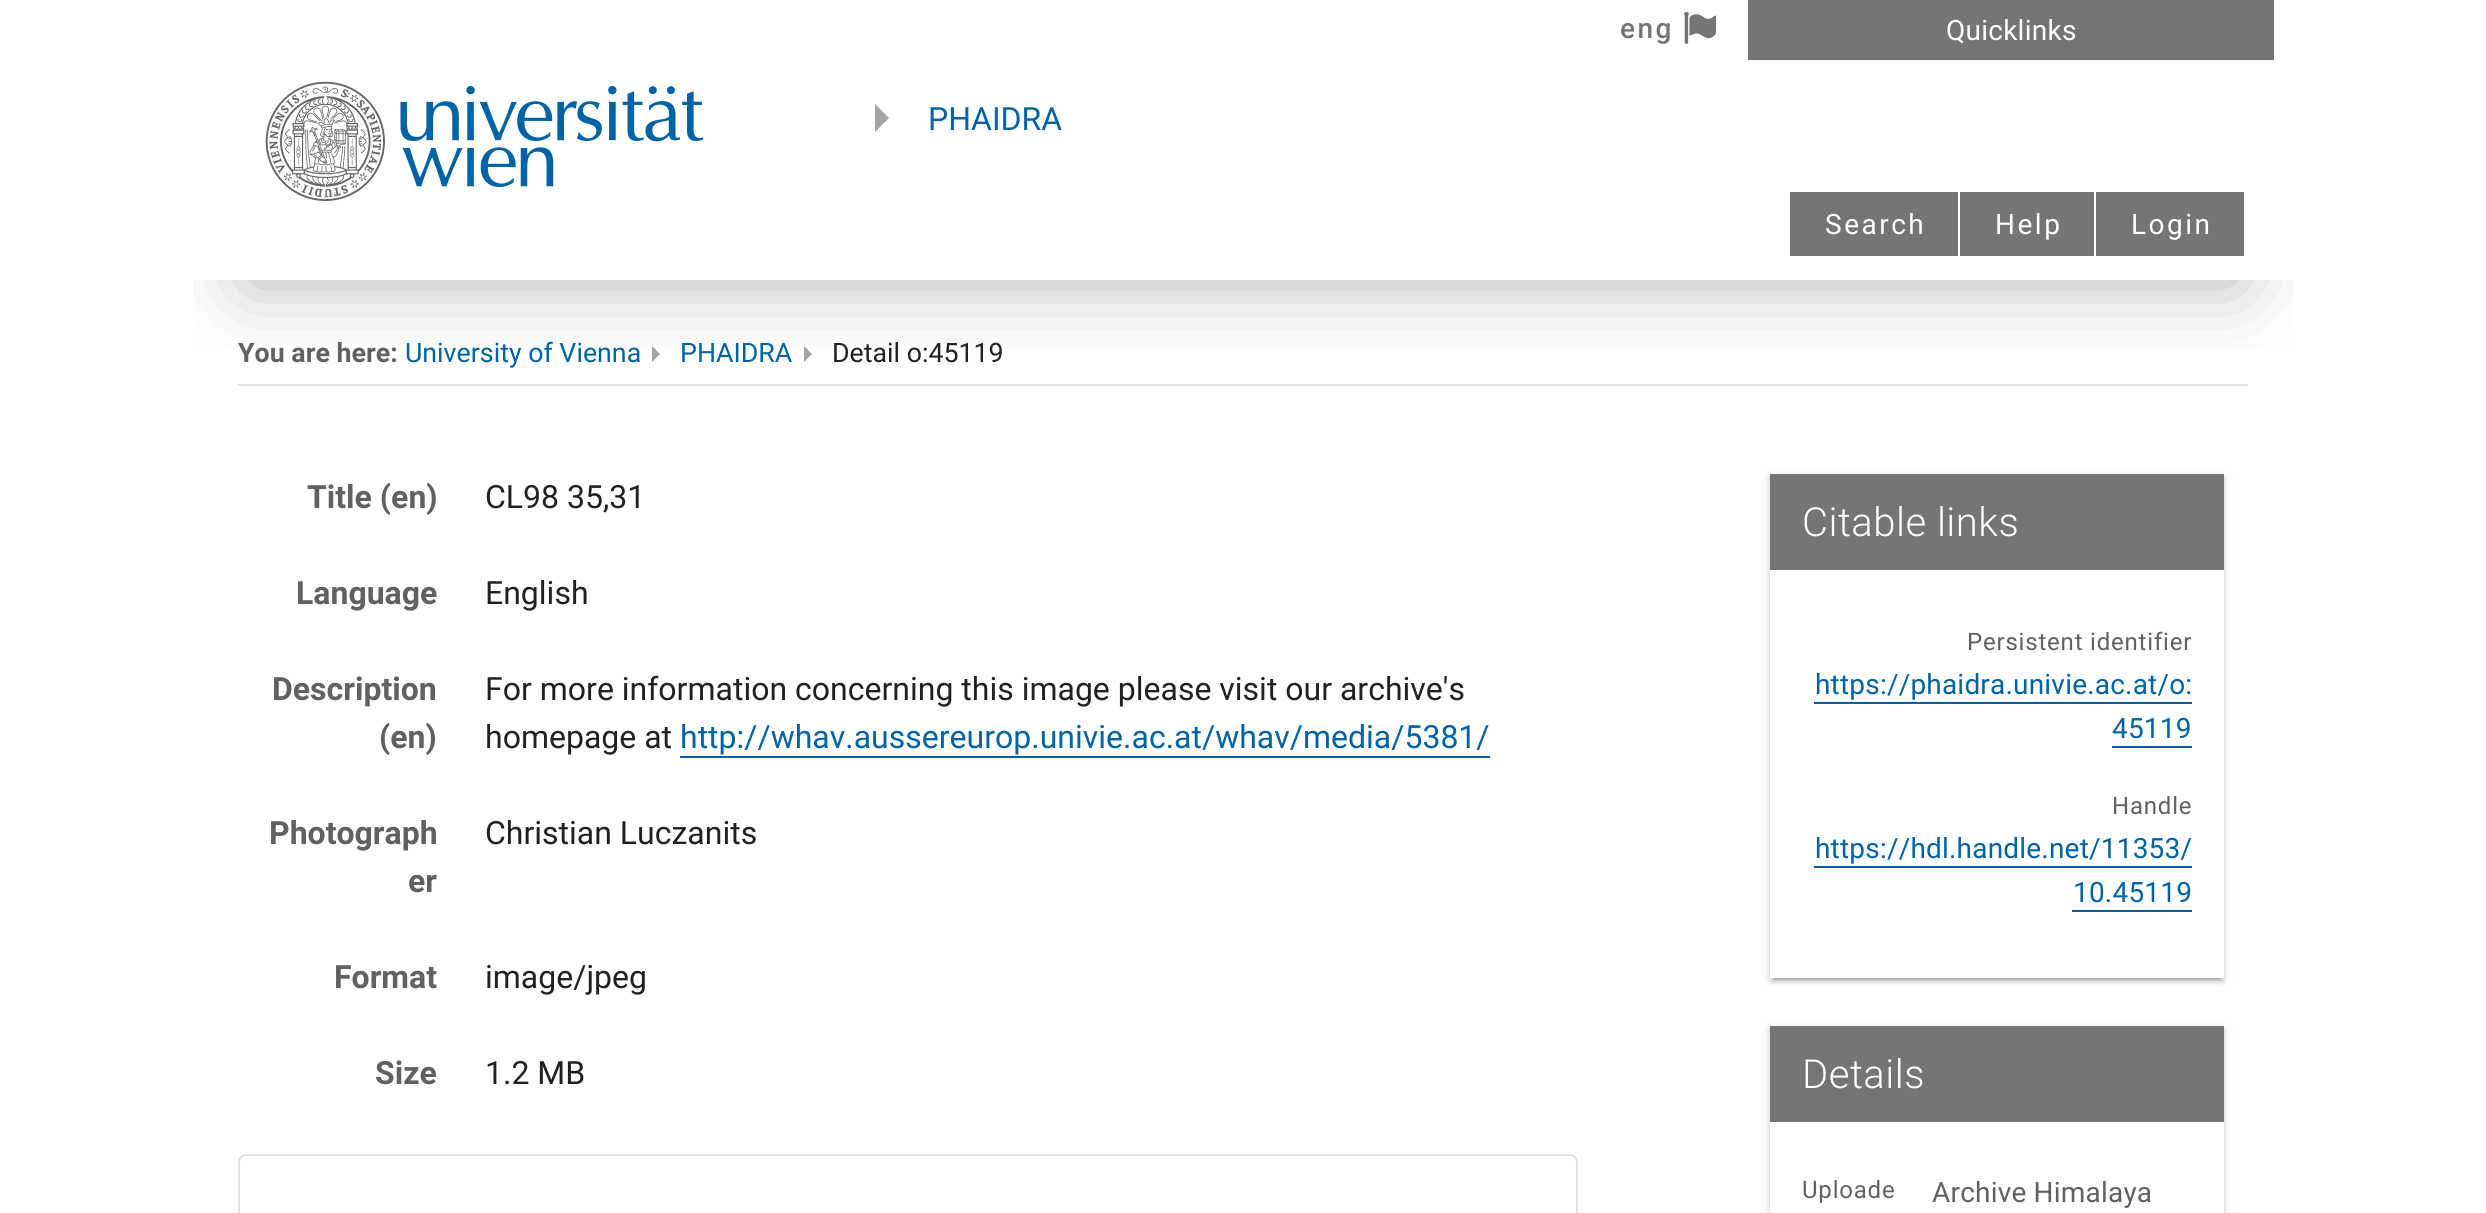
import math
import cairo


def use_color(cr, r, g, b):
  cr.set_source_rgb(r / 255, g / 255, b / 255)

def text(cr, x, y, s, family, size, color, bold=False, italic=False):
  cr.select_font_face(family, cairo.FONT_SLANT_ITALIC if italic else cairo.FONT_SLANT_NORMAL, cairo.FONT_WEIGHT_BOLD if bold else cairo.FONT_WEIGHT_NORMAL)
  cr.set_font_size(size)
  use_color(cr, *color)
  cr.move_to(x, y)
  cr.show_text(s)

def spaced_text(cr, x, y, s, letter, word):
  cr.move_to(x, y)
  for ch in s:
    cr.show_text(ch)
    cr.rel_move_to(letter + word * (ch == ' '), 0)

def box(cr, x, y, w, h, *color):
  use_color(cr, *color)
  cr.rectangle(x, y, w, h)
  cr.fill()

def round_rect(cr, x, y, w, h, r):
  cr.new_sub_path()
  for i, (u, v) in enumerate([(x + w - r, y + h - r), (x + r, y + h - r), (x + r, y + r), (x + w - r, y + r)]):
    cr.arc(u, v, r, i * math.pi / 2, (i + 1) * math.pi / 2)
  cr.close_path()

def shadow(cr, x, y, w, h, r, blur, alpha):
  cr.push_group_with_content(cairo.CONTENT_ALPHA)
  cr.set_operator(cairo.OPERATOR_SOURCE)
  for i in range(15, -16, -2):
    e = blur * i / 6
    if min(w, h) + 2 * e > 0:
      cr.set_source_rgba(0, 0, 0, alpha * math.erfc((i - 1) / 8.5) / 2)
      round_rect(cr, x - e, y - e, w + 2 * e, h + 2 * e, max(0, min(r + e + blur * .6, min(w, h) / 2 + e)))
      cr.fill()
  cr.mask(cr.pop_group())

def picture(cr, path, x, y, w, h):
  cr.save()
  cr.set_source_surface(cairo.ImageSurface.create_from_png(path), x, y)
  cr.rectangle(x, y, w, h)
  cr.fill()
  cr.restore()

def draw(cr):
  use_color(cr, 255, 255, 255)
  cr.paint()
  use_color(cr, 164, 164, 164)
  cr.new_path()
  cr.move_to(652, 346)
  cr.line_to(652, 362)
  cr.line_to(660, 354)
  cr.close_path()
  cr.fill()
  cr.new_path()
  cr.move_to(804, 346)
  cr.line_to(804, 362)
  cr.line_to(812, 354)
  cr.close_path()
  cr.fill()
  box(cr, 238, 384, 2010, 2, 224, 224, 224)
  cr.save()
  cr.rectangle(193, 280, 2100, 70)
  cr.clip()
  use_color(cr, 70, 70, 70)
  shadow(cr, 246, 28, 1994, 256, 0, 40, 0.4)
  cr.restore()
  box(cr, 173, 0, 61, 280, 255, 255, 255)
  box(cr, 2252, 0, 61, 280, 255, 255, 255)
  picture(cr, "img_01.png", 265, 81, 439, 120)
  picture(cr, "img_02.png", 1684, 12, 32, 32)
  box(cr, 1748, 0, 526, 60, 117, 117, 117)
  use_color(cr, 164, 164, 164)
  cr.new_path()
  cr.move_to(875, 104)
  cr.line_to(875, 132)
  cr.line_to(889, 118)
  cr.close_path()
  cr.fill()
  box(cr, 1790, 192, 168, 64, 117, 117, 117)
  box(cr, 1960, 192, 134, 64, 117, 117, 117)
  box(cr, 2096, 192, 148, 64, 117, 117, 117)
  box(cr, 680, 756, 810, 2, 0, 99, 166)
  round_rect(cr, 239, 1155, 1338, 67, 7)
  use_color(cr, 224, 224, 224)
  cr.stroke()
  cr.save()
  cr.set_fill_rule(cairo.FILL_RULE_EVEN_ODD)
  cr.new_path()
  cr.move_to(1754, 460)
  cr.line_to(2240, 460)
  cr.line_to(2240, 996)
  cr.line_to(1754, 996)
  cr.close_path()
  cr.move_to(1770, 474)
  cr.line_to(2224, 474)
  cr.line_to(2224, 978)
  cr.line_to(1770, 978)
  cr.close_path()
  cr.clip()
  use_color(cr, 0, 0, 0)
  shadow(cr, 1770, 476, 454, 504, 0, 5, 0.12)
  cr.restore()
  cr.save()
  cr.set_fill_rule(cairo.FILL_RULE_EVEN_ODD)
  cr.new_path()
  cr.move_to(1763, 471)
  cr.line_to(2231, 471)
  cr.line_to(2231, 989)
  cr.line_to(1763, 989)
  cr.close_path()
  cr.move_to(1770, 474)
  cr.line_to(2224, 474)
  cr.line_to(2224, 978)
  cr.line_to(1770, 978)
  cr.close_path()
  cr.clip()
  use_color(cr, 0, 0, 0)
  shadow(cr, 1770, 478, 454, 504, 0, 2, 0.14)
  cr.restore()
  cr.save()
  cr.rectangle(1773, 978, 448, 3)
  cr.clip()
  use_color(cr, 0, 0, 0)
  shadow(cr, 1774, 484, 446, 496, 0, 1, 0.2)
  cr.restore()
  box(cr, 1770, 474, 454, 96, 117, 117, 117)
  box(cr, 1814, 702, 378, 2, 0, 99, 166)
  box(cr, 2112, 746, 80, 2, 0, 99, 166)
  box(cr, 1814, 866, 378, 2, 0, 99, 166)
  box(cr, 2072, 910, 120, 2, 0, 99, 166)
  cr.save()
  cr.set_fill_rule(cairo.FILL_RULE_EVEN_ODD)
  cr.new_path()
  cr.move_to(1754, 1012)
  cr.line_to(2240, 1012)
  cr.line_to(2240, 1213)
  cr.line_to(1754, 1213)
  cr.close_path()
  cr.move_to(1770, 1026)
  cr.line_to(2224, 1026)
  cr.line_to(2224, 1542)
  cr.line_to(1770, 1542)
  cr.close_path()
  cr.clip()
  use_color(cr, 0, 0, 0)
  shadow(cr, 1770, 1028, 454, 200, 0, 5, 0.12)
  cr.restore()
  cr.save()
  cr.set_fill_rule(cairo.FILL_RULE_EVEN_ODD)
  cr.new_path()
  cr.move_to(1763, 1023)
  cr.line_to(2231, 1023)
  cr.line_to(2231, 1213)
  cr.line_to(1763, 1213)
  cr.close_path()
  cr.move_to(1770, 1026)
  cr.line_to(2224, 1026)
  cr.line_to(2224, 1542)
  cr.line_to(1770, 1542)
  cr.close_path()
  cr.clip()
  use_color(cr, 0, 0, 0)
  shadow(cr, 1770, 1030, 454, 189, 0, 2, 0.14)
  cr.restore()
  box(cr, 1770, 1026, 454, 96, 117, 117, 117)
  cr.select_font_face("Roboto Medium")
  cr.set_font_size(28)
  spaced_text(cr, 1620, 38, "eng", 2.5, 0)
  cr.select_font_face("Roboto")
  use_color(cr, 255, 255, 255)
  spaced_text(cr, 1946, 40, "Quicklinks", 0.25, 0)
  text(cr, 928, 130, "PHAIDRA", "Roboto", 32, (0, 99, 166))
  cr.set_font_size(28)
  use_color(cr, 255, 255, 255)
  spaced_text(cr, 1825, 234, "Search", 2.5, 0)
  spaced_text(cr, 1995, 234, "Help", 2.5, 0)
  spaced_text(cr, 2131, 234, "Login", 2.5, 0)
  text(cr, 238, 362, "You are here:", "Roboto", 26.75, (97, 97, 97), bold=True)
  text(cr, 405, 362, "University of Vienna", "Roboto", 26.75, (0, 99, 166))
  text(cr, 680, 362, "PHAIDRA", "Roboto", 26.75, (0, 99, 166))
  text(cr, 832, 362, "Detail o:45119", "Roboto", 26.75, (33, 33, 33))
  text(cr, 307, 508, "Title (en)", "Roboto", 32, (97, 97, 97), bold=True)
  text(cr, 485, 508, "CL98 35,31", "Roboto", 32, (33, 33, 33))
  text(cr, 296, 604, "Language", "Roboto", 32, (97, 97, 97), bold=True)
  text(cr, 485, 604, "English", "Roboto", 32, (33, 33, 33))
  text(cr, 272, 700, "Description", "Roboto", 32, (97, 97, 97), bold=True)
  text(cr, 379, 748, "(en)", "Roboto", 32, (97, 97, 97), bold=True)
  text(cr, 485, 700, "For more information concerning this image please visit our archive's", "Roboto", 32, (33, 33, 33))
  text(cr, 485, 748, "homepage at", "Roboto", 32, (33, 33, 33))
  text(cr, 680, 748, "http://whav.aussereurop.univie.ac.at/whav/media/5381/", "Roboto", 32, (0, 99, 166))
  text(cr, 269, 844, "Photograph", "Roboto", 32, (97, 97, 97), bold=True)
  text(cr, 408, 892, "er", "Roboto", 32, (97, 97, 97), bold=True)
  text(cr, 485, 844, "Christian Luczanits", "Roboto", 32, (33, 33, 33))
  text(cr, 334, 988, "Format", "Roboto", 32, (97, 97, 97), bold=True)
  text(cr, 485, 988, "image/jpeg", "Roboto", 32, (33, 33, 33))
  text(cr, 375, 1084, "Size", "Roboto", 32, (97, 97, 97), bold=True)
  text(cr, 485, 1084, "1.2 MB", "Roboto", 32, (33, 33, 33))
  cr.select_font_face("Roboto Light")
  cr.set_font_size(40)
  use_color(cr, 255, 255, 255)
  spaced_text(cr, 1802, 536, "Citable links", 0.5, 0)
  cr.select_font_face("Roboto")
  cr.set_font_size(24)
  use_color(cr, 97, 97, 97)
  spaced_text(cr, 1967, 650, "Persistent identifier", 0.8, 0)
  cr.set_font_size(28)
  use_color(cr, 0, 99, 166)
  spaced_text(cr, 1815, 694, "https://phaidra.univie.ac.at/o:", 0.2, 0)
  spaced_text(cr, 2112, 738, "45119", 0.2, 0)
  cr.set_font_size(24)
  use_color(cr, 97, 97, 97)
  spaced_text(cr, 2112, 814, "Handle", 0.8, 0)
  cr.set_font_size(28)
  use_color(cr, 0, 99, 166)
  spaced_text(cr, 1815, 858, "https://hdl.handle.net/11353/", 0.2, 0)
  spaced_text(cr, 2073, 902, "10.45119", 0.2, 0)
  cr.select_font_face("Roboto Light")
  cr.set_font_size(40)
  use_color(cr, 255, 255, 255)
  spaced_text(cr, 1802, 1088, "Details", 0.5, 0)
  cr.select_font_face("Roboto")
  cr.set_font_size(24)
  use_color(cr, 97, 97, 97)
  spaced_text(cr, 1802, 1198, "Uploade", 0.8, 0)
  cr.set_font_size(28)
  spaced_text(cr, 1932, 1202, "Archive Himalaya", 0.2, 0)


surface = cairo.ImageSurface(cairo.FORMAT_RGB24, 2486, 1213)
cr = cairo.Context(surface)
options = cairo.FontOptions()
options.set_hint_metrics(cairo.HINT_METRICS_OFF)
options.set_hint_style(cairo.HINT_STYLE_NONE)
cr.set_font_options(options)
cr.set_miter_limit(4)
draw(cr)
surface.write_to_png("out.png")
